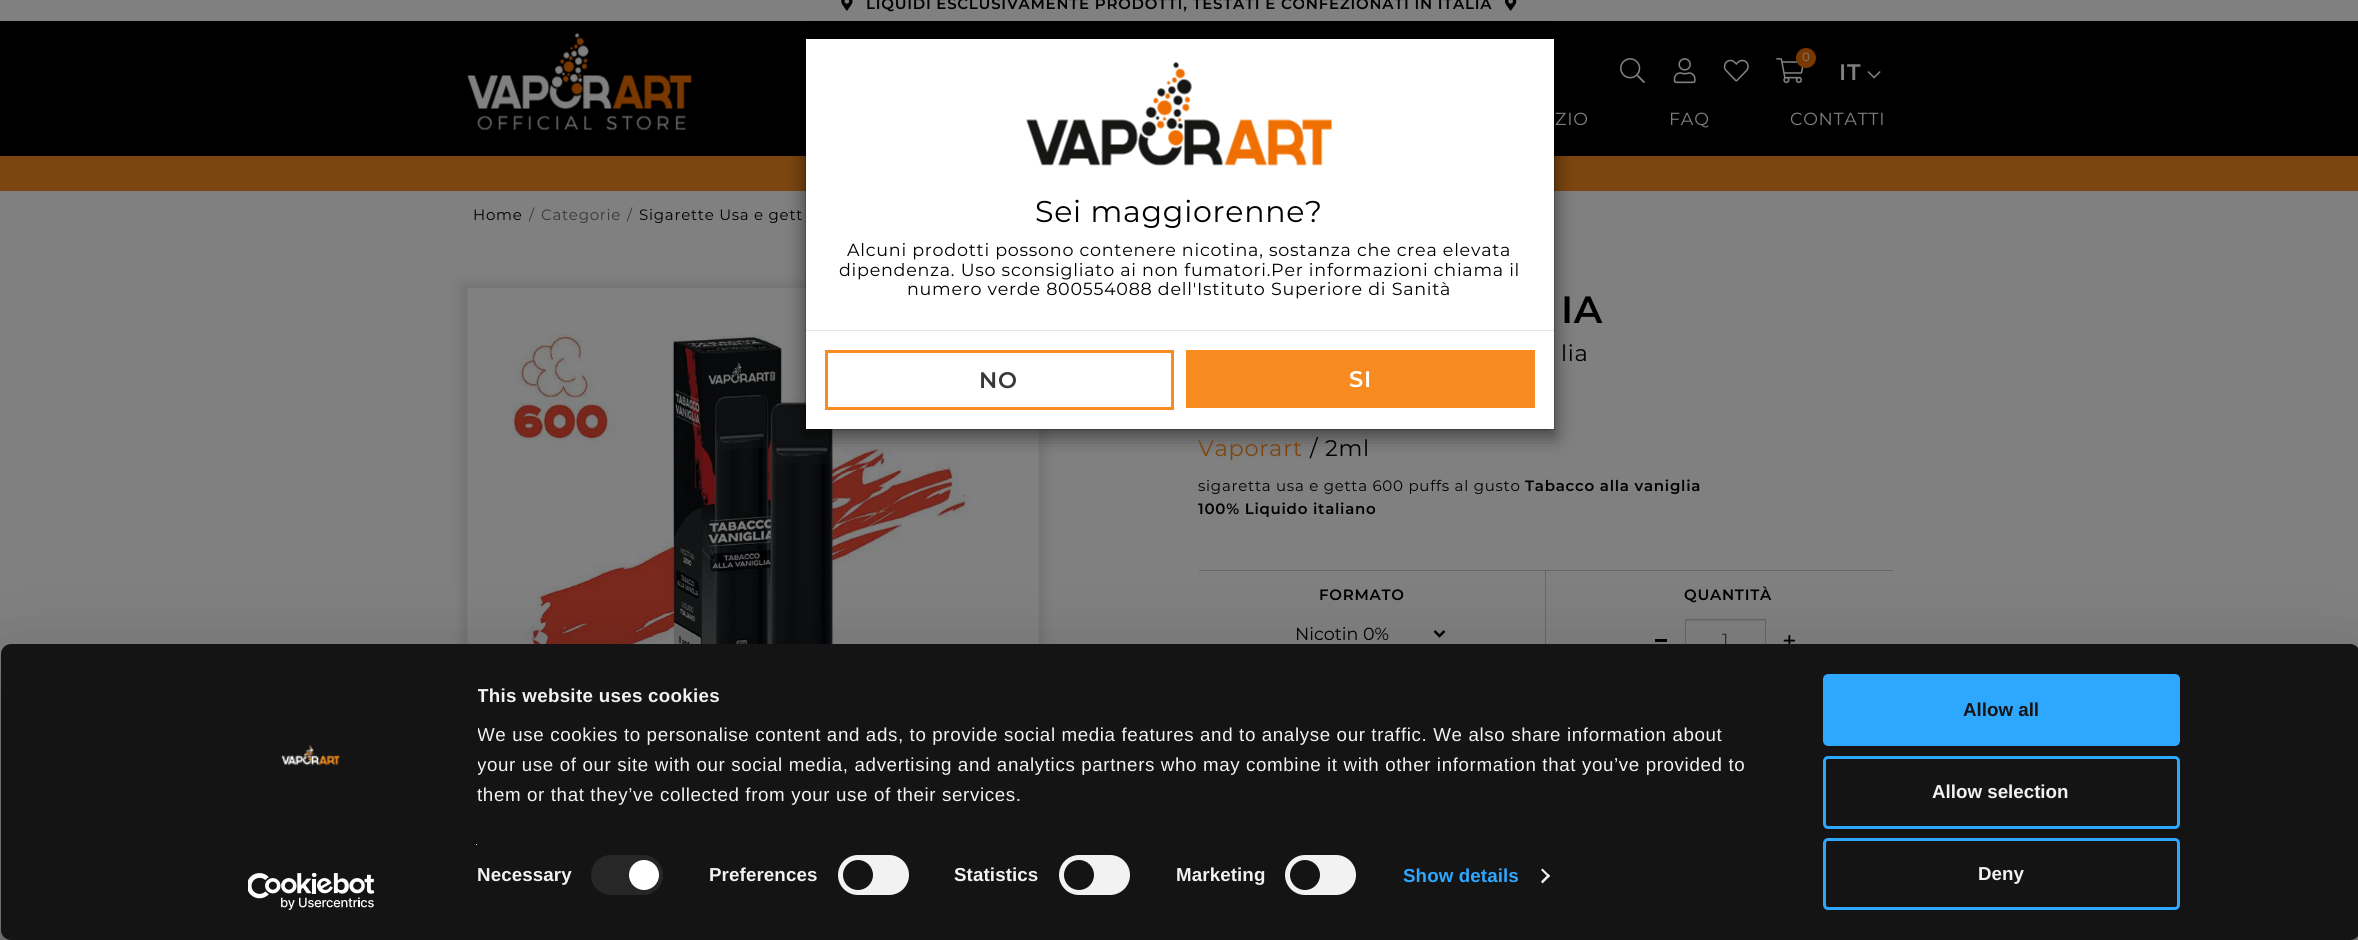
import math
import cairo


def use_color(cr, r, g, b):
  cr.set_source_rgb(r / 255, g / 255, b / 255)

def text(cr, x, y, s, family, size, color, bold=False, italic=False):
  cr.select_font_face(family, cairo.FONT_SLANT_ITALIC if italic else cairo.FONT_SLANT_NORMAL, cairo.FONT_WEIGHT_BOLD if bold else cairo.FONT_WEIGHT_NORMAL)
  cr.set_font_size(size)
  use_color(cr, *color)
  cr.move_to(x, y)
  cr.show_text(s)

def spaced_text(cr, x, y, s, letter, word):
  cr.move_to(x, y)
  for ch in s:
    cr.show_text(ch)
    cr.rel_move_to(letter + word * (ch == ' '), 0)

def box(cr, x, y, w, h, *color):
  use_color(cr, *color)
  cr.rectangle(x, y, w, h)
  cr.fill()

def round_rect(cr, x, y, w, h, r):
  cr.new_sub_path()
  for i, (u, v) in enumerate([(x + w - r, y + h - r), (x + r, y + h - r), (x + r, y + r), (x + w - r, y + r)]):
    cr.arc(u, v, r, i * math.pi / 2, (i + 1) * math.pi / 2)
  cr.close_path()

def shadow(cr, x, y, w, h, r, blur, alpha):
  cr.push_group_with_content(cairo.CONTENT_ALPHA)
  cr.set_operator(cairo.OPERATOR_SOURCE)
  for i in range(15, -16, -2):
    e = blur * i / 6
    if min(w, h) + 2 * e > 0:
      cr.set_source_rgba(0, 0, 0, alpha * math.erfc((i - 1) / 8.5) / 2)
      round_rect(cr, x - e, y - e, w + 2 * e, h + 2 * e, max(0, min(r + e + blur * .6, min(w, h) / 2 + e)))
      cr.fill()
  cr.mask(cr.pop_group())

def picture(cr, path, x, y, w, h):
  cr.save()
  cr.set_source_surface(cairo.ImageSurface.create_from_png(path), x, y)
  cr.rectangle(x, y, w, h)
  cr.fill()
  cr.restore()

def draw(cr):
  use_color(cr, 128, 128, 128)
  cr.paint()
  picture(cr, "img_01.png", 841, 0, 12, 11)
  picture(cr, "img_02.png", 1505, 0, 12, 11)
  box(cr, 0, 21, 2358, 135, 0, 0, 0)
  picture(cr, "img_03.png", 467, 33, 225, 97)
  picture(cr, "img_04.png", 1776, 58, 28, 26)
  use_color(cr, 120, 56, 0)
  cr.arc(1806, 58, 10, 0, 2 * math.pi)
  cr.fill()
  picture(cr, "img_05.png", 1620, 58, 25, 26)
  picture(cr, "img_06.png", 1673, 58, 23, 26)
  picture(cr, "img_07.png", 1723, 59, 26, 23)
  picture(cr, "img_08.png", 1867, 71, 14, 8)
  box(cr, 0, 156, 2358, 35, 124, 70, 16)
  use_color(cr, 0, 0, 0)
  shadow(cr, 461, 283, 584, 585, 0, 6, 0.1)
  picture(cr, "img_10.png", 467, 288, 572, 356)
  shadow(cr, 805, 44, 750, 392, 0, 9.5, 0.5)
  box(cr, 806, 39, 748, 390, 255, 255, 255)
  cr.rectangle(805.5, 38.5, 749, 391)
  cr.set_source_rgba(0, 0, 0, 0.2)
  cr.set_line_width(1)
  cr.stroke()
  picture(cr, "img_09.png", 1026, 62, 307, 104)
  box(cr, 806, 330, 748, 1, 229, 229, 229)
  cr.rectangle(826.5, 351.5, 346, 57)
  use_color(cr, 247, 139, 31)
  cr.set_line_width(3)
  cr.stroke()
  box(cr, 1186, 350, 349, 58, 247, 139, 31)
  box(cr, 1199, 570, 694, 1, 102, 102, 102)
  cr.new_path()
  cr.move_to(1434.5, 631)
  cr.line_to(1439.5, 636)
  cr.line_to(1444.5, 631)
  use_color(cr, 0, 0, 0)
  cr.set_line_width(2.5)
  cr.stroke()
  box(cr, 1545, 571, 1, 73, 102, 102, 102)
  box(cr, 1655, 639, 12, 3, 0, 0, 0)
  box(cr, 1686, 620, 79, 1, 118, 118, 118)
  cr.rectangle(1685.5, 619.5, 80, 41)
  use_color(cr, 102, 102, 102)
  cr.set_line_width(1)
  cr.stroke()
  picture(cr, "img_11.png", 1783, 635, 12, 9)
  use_color(cr, 0, 0, 0)
  shadow(cr, 1, 681, 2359, 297, 10, 44, 0.3)
  cr.select_font_face("Montserrat SemiBold")
  cr.set_font_size(15)
  use_color(cr, 0, 0, 0)
  spaced_text(cr, 866, 9, "LIQUIDI ESCLUSIVAMENTE PRODOTTI, TESTATI E CONFEZIONATI IN ITALIA", 0.75, 0)
  cr.select_font_face("Montserrat")
  cr.set_font_size(12)
  use_color(cr, 128, 128, 128)
  spaced_text(cr, 1802, 61, "0", 0.75, 0)
  cr.select_font_face("Montserrat SemiBold")
  cr.set_font_size(22.5)
  spaced_text(cr, 1839, 80, "IT", 0.75, 0)
  cr.select_font_face("Montserrat")
  cr.set_font_size(17.5)
  spaced_text(cr, 1555, 125, "ZIO", 0.75, 0)
  spaced_text(cr, 1669, 125, "FAQ", 0.75, 0)
  spaced_text(cr, 1790, 125, "CONTATTI", 0.75, 0)
  cr.set_font_size(15)
  use_color(cr, 0, 0, 0)
  spaced_text(cr, 473, 220, "Home", 0.75, 0)
  use_color(cr, 56, 56, 56)
  spaced_text(cr, 529, 220, "/", 0.75, 0)
  spaced_text(cr, 541, 220, "Categorie", 0.75, 0)
  spaced_text(cr, 627, 220, "/", 0.75, 0)
  use_color(cr, 0, 0, 0)
  spaced_text(cr, 639, 220, "Sigarette Usa e gett", 0.75, 0)
  cr.set_font_size(30)
  spaced_text(cr, 1035, 222, "Sei maggiorenne?", 0.75, 0)
  cr.set_font_size(17.5)
  spaced_text(cr, 847, 256, "Alcuni prodotti possono contenere nicotina, sostanza che crea elevata", 0.75, 0)
  spaced_text(cr, 839, 276, "dipendenza. Uso sconsigliato ai non fumatori.Per informazioni chiama il", 0.75, 0)
  spaced_text(cr, 907, 295, "numero verde 800554088 dell'Istituto Superiore di Sanità", 0.75, 0)
  cr.select_font_face("Montserrat SemiBold")
  cr.set_font_size(22.5)
  use_color(cr, 56, 56, 56)
  spaced_text(cr, 979, 388, "NO", 0.75, 0)
  use_color(cr, 255, 255, 255)
  spaced_text(cr, 1349, 387, "SI", 0.75, 0)
  cr.set_font_size(38)
  use_color(cr, 0, 0, 0)
  spaced_text(cr, 1561, 323, "IA", 0.75, 0)
  cr.select_font_face("Montserrat")
  cr.set_font_size(22.5)
  spaced_text(cr, 1561, 361, "lia", 0.75, 0)
  use_color(cr, 124, 70, 16)
  spaced_text(cr, 1198, 456, "Vaporart", 0.75, 0)
  use_color(cr, 0, 0, 0)
  spaced_text(cr, 1310, 456, "/ 2ml", 0.75, 0)
  cr.set_font_size(15)
  spaced_text(cr, 1198, 491, "sigaretta usa e getta 600 puffs al gusto", 0.75, 0)
  cr.select_font_face("Montserrat SemiBold")
  spaced_text(cr, 1525, 491, "Tabacco alla vaniglia", 0.75, 0)
  spaced_text(cr, 1198, 514, "100% Liquido italiano", 0.75, 0)
  spaced_text(cr, 1319, 600, "FORMATO", 0.75, 0)
  text(cr, 1295, 640, "Nicotin 0%", "Montserrat", 17.5, (0, 0, 0))
  cr.select_font_face("Montserrat SemiBold")
  cr.set_font_size(15)
  spaced_text(cr, 1684, 600, "QUANTITÀ", 0.75, 0)
  text(cr, 1722, 646, "1", "Montserrat", 17.5, (43, 43, 43))
  use_color(cr, 20, 20, 20)
  round_rect(cr, 1, 644, 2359, 296, 10)
  cr.fill()
  picture(cr, "img_12.png", 281, 745, 59, 21)
  picture(cr, "img_13.png", 248, 873, 127, 37)
  cr.save()
  cr.rectangle(478, 681, 1310, 129)
  cr.clip()
  cr.select_font_face("Liberation Sans", cairo.FONT_SLANT_NORMAL, cairo.FONT_WEIGHT_BOLD)
  cr.set_font_size(18.75)
  use_color(cr, 242, 242, 242)
  spaced_text(cr, 477, 702, "This website uses cookies", 0.3, 0)
  cr.select_font_face("Liberation Sans")
  spaced_text(cr, 477, 741, "We use cookies to personalise content and ads, to provide social media features and to analyse our traffic. We also share information about", 0.62, 0)
  spaced_text(cr, 477, 771, "your use of our site with our social media, advertising and analytics partners who may combine it with other information that you’ve provided to", 0.62, 0)
  cr.restore()
  cr.select_font_face("Liberation Sans")
  cr.set_font_size(18.75)
  use_color(cr, 242, 242, 242)
  spaced_text(cr, 477, 801, "them or that they’ve collected from your use of their services.", 0.62, 0)
  box(cr, 476, 844, 1, 1, 229, 229, 229)
  cr.select_font_face("Liberation Sans", cairo.FONT_SLANT_NORMAL, cairo.FONT_WEIGHT_BOLD)
  use_color(cr, 242, 242, 242)
  spaced_text(cr, 477, 881, "Necessary", 0.1, 0)
  use_color(cr, 39, 39, 39)
  round_rect(cr, 591, 855, 72, 40, 20)
  cr.fill()
  use_color(cr, 255, 255, 255)
  cr.arc(644, 875, 15, 0, 2 * math.pi)
  cr.fill()
  use_color(cr, 242, 242, 242)
  spaced_text(cr, 709, 881, "Preferences", 0.1, 0)
  round_rect(cr, 838, 855, 71, 40, 20)
  cr.fill()
  use_color(cr, 20, 20, 20)
  cr.arc(858, 875, 15, 0, 2 * math.pi)
  cr.fill()
  use_color(cr, 242, 242, 242)
  spaced_text(cr, 954, 881, "Statistics", 0.1, 0)
  round_rect(cr, 1059, 855, 71, 40, 20)
  cr.fill()
  use_color(cr, 20, 20, 20)
  cr.arc(1079, 875, 15, 0, 2 * math.pi)
  cr.fill()
  use_color(cr, 242, 242, 242)
  spaced_text(cr, 1176, 881, "Marketing", 0.1, 0)
  round_rect(cr, 1285, 855, 71, 40, 20)
  cr.fill()
  use_color(cr, 20, 20, 20)
  cr.arc(1305, 875, 15, 0, 2 * math.pi)
  cr.fill()
  use_color(cr, 46, 167, 255)
  spaced_text(cr, 1403, 882, "Show details", 0.1, 0)
  use_color(cr, 242, 242, 242)
  cr.new_path()
  cr.move_to(1542.5, 868.5)
  cr.line_to(1550, 876)
  cr.line_to(1548.5, 877.5)
  cr.line_to(1541, 870)
  cr.close_path()
  cr.fill()
  cr.new_path()
  cr.move_to(1548.5, 874)
  cr.line_to(1550, 876)
  cr.line_to(1542.5, 883.5)
  cr.line_to(1541, 881.5)
  cr.close_path()
  cr.fill()
  use_color(cr, 46, 167, 255)
  round_rect(cr, 1824.5, 675.5, 354, 69, 3.5)
  cr.fill_preserve()
  cr.set_line_width(3)
  cr.stroke()
  text(cr, 1963, 716, "Allow all", "Liberation Sans", 18.75, (20, 20, 20), bold=True)
  round_rect(cr, 1824.5, 757.5, 354, 70, 3.5)
  use_color(cr, 46, 167, 255)
  cr.stroke()
  text(cr, 1932, 798, "Allow selection", "Liberation Sans", 18.75, (242, 242, 242), bold=True)
  round_rect(cr, 1824.5, 839.5, 354, 69, 3.5)
  use_color(cr, 46, 167, 255)
  cr.stroke()
  text(cr, 1978, 880, "Deny", "Liberation Sans", 18.75, (242, 242, 242), bold=True)


surface = cairo.ImageSurface(cairo.FORMAT_RGB24, 2358, 940)
cr = cairo.Context(surface)
options = cairo.FontOptions()
options.set_hint_metrics(cairo.HINT_METRICS_OFF)
options.set_hint_style(cairo.HINT_STYLE_NONE)
cr.set_font_options(options)
cr.set_miter_limit(4)
draw(cr)
surface.write_to_png("out.png")
